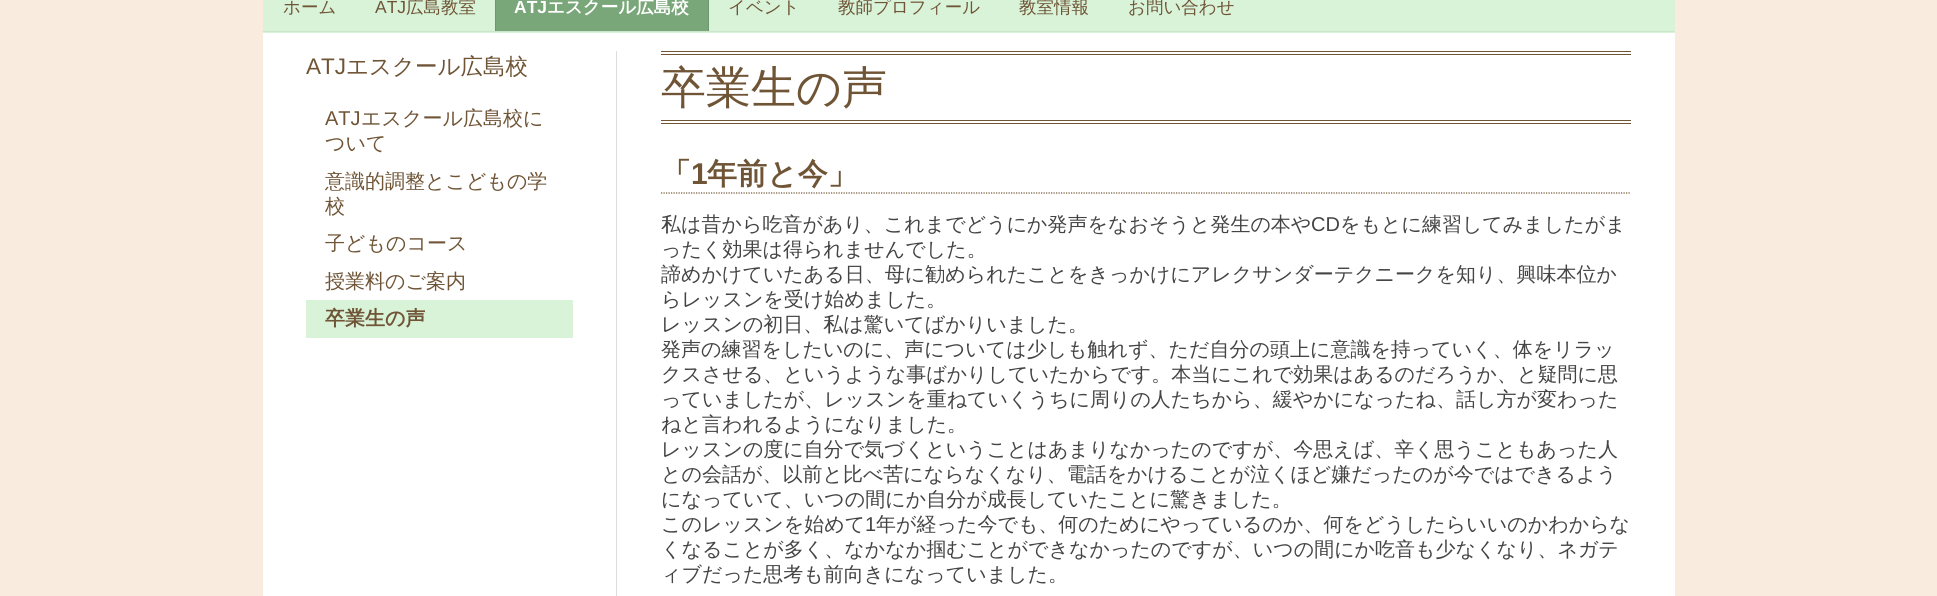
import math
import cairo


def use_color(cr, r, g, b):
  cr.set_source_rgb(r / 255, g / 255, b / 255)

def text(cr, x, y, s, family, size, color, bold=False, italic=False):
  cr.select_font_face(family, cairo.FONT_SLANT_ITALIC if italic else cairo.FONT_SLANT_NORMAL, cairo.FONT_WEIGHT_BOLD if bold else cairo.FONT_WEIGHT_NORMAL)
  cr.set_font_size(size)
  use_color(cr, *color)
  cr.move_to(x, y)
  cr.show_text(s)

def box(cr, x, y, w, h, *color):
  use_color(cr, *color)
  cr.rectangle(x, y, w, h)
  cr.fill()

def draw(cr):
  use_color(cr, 249, 236, 223)
  cr.paint()
  box(cr, 263, 0, 1412, 33, 217, 243, 217)
  use_color(cr, 204, 228, 204)
  cr.new_path()
  cr.move_to(1675, 32)
  cr.line_to(262, 32)
  cr.line_to(264, 31)
  cr.line_to(1674, 31)
  cr.close_path()
  cr.fill()
  box(cr, 496, 0, 212, 31, 122, 167, 122)
  use_color(cr, 110, 150, 110)
  cr.new_path()
  cr.move_to(709, -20)
  cr.line_to(709, 31)
  cr.line_to(708, 31)
  cr.line_to(708, -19)
  cr.close_path()
  cr.fill()
  cr.new_path()
  cr.move_to(495, 31)
  cr.line_to(495, -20)
  cr.line_to(496, -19)
  cr.line_to(496, 31)
  cr.close_path()
  cr.fill()
  box(cr, 263, 33, 1412, 563, 255, 255, 255)
  box(cr, 306, 300, 267, 38, 217, 243, 217)
  box(cr, 616, 51, 1, 545, 221, 221, 221)
  box(cr, 661, 51, 970, 1, 111, 84, 54)
  box(cr, 661, 54, 970, 1, 111, 84, 54)
  box(cr, 661, 120, 970, 1, 111, 84, 54)
  box(cr, 661, 123, 970, 1, 111, 84, 54)
  cr.new_path()
  cr.move_to(661, 193)
  cr.line_to(1631, 193)
  cr.set_line_width(1.2)
  cr.set_dash([1.25, 1.25])
  cr.stroke()
  text(cr, 283, 13, "ホーム", "WenQuanYi Zen Hei Medium", 17.5, (111, 84, 54))
  text(cr, 375, 13, "ATJ", "Liberation Sans", 17.5, (111, 84, 54))
  text(cr, 406, 13, "広島教室", "WenQuanYi Zen Hei Medium", 17.5, (111, 84, 54))
  text(cr, 514, 13, "ATJ", "Liberation Sans", 17.5, (255, 255, 255), bold=True)
  text(cr, 547, 13, "エスクール広島校", "WenQuanYi Zen Hei", 17.5, (255, 255, 255), bold=True)
  text(cr, 728, 13, "イベント", "WenQuanYi Zen Hei Medium", 17.5, (111, 84, 54))
  text(cr, 838, 13, "教師プロフィール", "WenQuanYi Zen Hei Medium", 17.5, (111, 84, 54))
  text(cr, 1019, 13, "教室情報", "WenQuanYi Zen Hei Medium", 17.5, (111, 84, 54))
  text(cr, 1128, 13, "お問い合わせ", "WenQuanYi Zen Hei Medium", 17.5, (111, 84, 54))
  text(cr, 306, 74, "ATJ", "Liberation Sans", 22.5, (111, 84, 54))
  text(cr, 346, 74, "エスクール広島校", "WenQuanYi Zen Hei Medium", 22.5, (111, 84, 54))
  text(cr, 325, 125, "ATJ", "Liberation Sans", 20, (111, 84, 54))
  text(cr, 361, 125, "エスクール広島校に", "WenQuanYi Zen Hei Medium", 20, (111, 84, 54))
  text(cr, 325, 150, "ついて", "WenQuanYi Zen Hei Medium", 20, (111, 84, 54))
  text(cr, 325, 188, "意識的調整とこどもの学", "WenQuanYi Zen Hei Medium", 20, (111, 84, 54))
  text(cr, 325, 213, "校", "WenQuanYi Zen Hei Medium", 20, (111, 84, 54))
  text(cr, 325, 250, "子どものコース", "WenQuanYi Zen Hei Medium", 20, (111, 84, 54))
  text(cr, 325, 288, "授業料のご案内", "WenQuanYi Zen Hei Medium", 20, (111, 84, 54))
  text(cr, 325, 325, "卒業生の声", "WenQuanYi Zen Hei", 20, (111, 84, 54), bold=True)
  text(cr, 661, 103, "卒業生の声", "WenQuanYi Zen Hei Medium", 45, (111, 84, 54))
  text(cr, 661, 184, "「", "WenQuanYi Zen Hei", 30, (111, 84, 54), bold=True)
  text(cr, 691, 184, "1", "Liberation Sans", 30, (111, 84, 54), bold=True)
  text(cr, 707, 184, "年前と今」", "WenQuanYi Zen Hei", 30, (111, 84, 54), bold=True)
  text(cr, 661, 231, "私は昔から吃音があり、これまでどうにか発声をなおそうと発生の本や", "WenQuanYi Zen Hei Medium", 20, (68, 68, 68))
  text(cr, 1311, 231, "CD", "Liberation Sans", 20, (68, 68, 68))
  text(cr, 1340, 231, "をもとに練習してみましたがま", "WenQuanYi Zen Hei Medium", 20, (68, 68, 68))
  text(cr, 661, 256, "ったく効果は得られませんでした。", "WenQuanYi Zen Hei Medium", 20, (68, 68, 68))
  text(cr, 661, 281, "諦めかけていたある日、母に勧められたことをきっかけにアレクサンダーテクニークを知り、興味本位か", "WenQuanYi Zen Hei Medium", 20, (68, 68, 68))
  text(cr, 661, 306, "らレッスンを受け始めました。", "WenQuanYi Zen Hei Medium", 20, (68, 68, 68))
  text(cr, 661, 331, "レッスンの初日、私は驚いてばかりいました。", "WenQuanYi Zen Hei Medium", 20, (68, 68, 68))
  text(cr, 661, 356, "発声の練習をしたいのに、声については少しも触れず、ただ自分の頭上に意識を持っていく、体をリラッ", "WenQuanYi Zen Hei Medium", 20, (68, 68, 68))
  text(cr, 661, 381, "クスさせる、というような事ばかりしていたからです。本当にこれで効果はあるのだろうか、と疑問に思", "WenQuanYi Zen Hei Medium", 20, (68, 68, 68))
  text(cr, 661, 406, "っていましたが、レッスンを重ねていくうちに周りの人たちから、緩やかになったね、話し方が変わった", "WenQuanYi Zen Hei Medium", 20, (68, 68, 68))
  text(cr, 661, 431, "ねと言われるようになりました。", "WenQuanYi Zen Hei Medium", 20, (68, 68, 68))
  text(cr, 661, 456, "レッスンの度に自分で気づくということはあまりなかったのですが、今思えば、辛く思うこともあった人", "WenQuanYi Zen Hei Medium", 20, (68, 68, 68))
  text(cr, 661, 481, "との会話が、以前と比べ苦にならなくなり、電話をかけることが泣くほど嫌だったのが今ではできるよう", "WenQuanYi Zen Hei Medium", 20, (68, 68, 68))
  text(cr, 661, 506, "になっていて、いつの間にか自分が成長していたことに驚きました。", "WenQuanYi Zen Hei Medium", 20, (68, 68, 68))
  text(cr, 661, 531, "このレッスンを始めて", "WenQuanYi Zen Hei Medium", 20, (68, 68, 68))
  text(cr, 865, 531, "1", "Liberation Sans", 20, (68, 68, 68))
  text(cr, 876, 531, "年が経った今でも、何のためにやっているのか、何をどうしたらいいのかわからな", "WenQuanYi Zen Hei Medium", 20, (68, 68, 68))
  text(cr, 661, 556, "くなることが多く、なかなか掴むことができなかったのですが、いつの間にか吃音も少なくなり、ネガテ", "WenQuanYi Zen Hei Medium", 20, (68, 68, 68))
  text(cr, 661, 581, "ィブだった思考も前向きになっていました。", "WenQuanYi Zen Hei Medium", 20, (68, 68, 68))


surface = cairo.ImageSurface(cairo.FORMAT_RGB24, 1937, 596)
cr = cairo.Context(surface)
options = cairo.FontOptions()
options.set_hint_metrics(cairo.HINT_METRICS_OFF)
options.set_hint_style(cairo.HINT_STYLE_NONE)
cr.set_font_options(options)
cr.set_miter_limit(4)
draw(cr)
surface.write_to_png("out.png")
